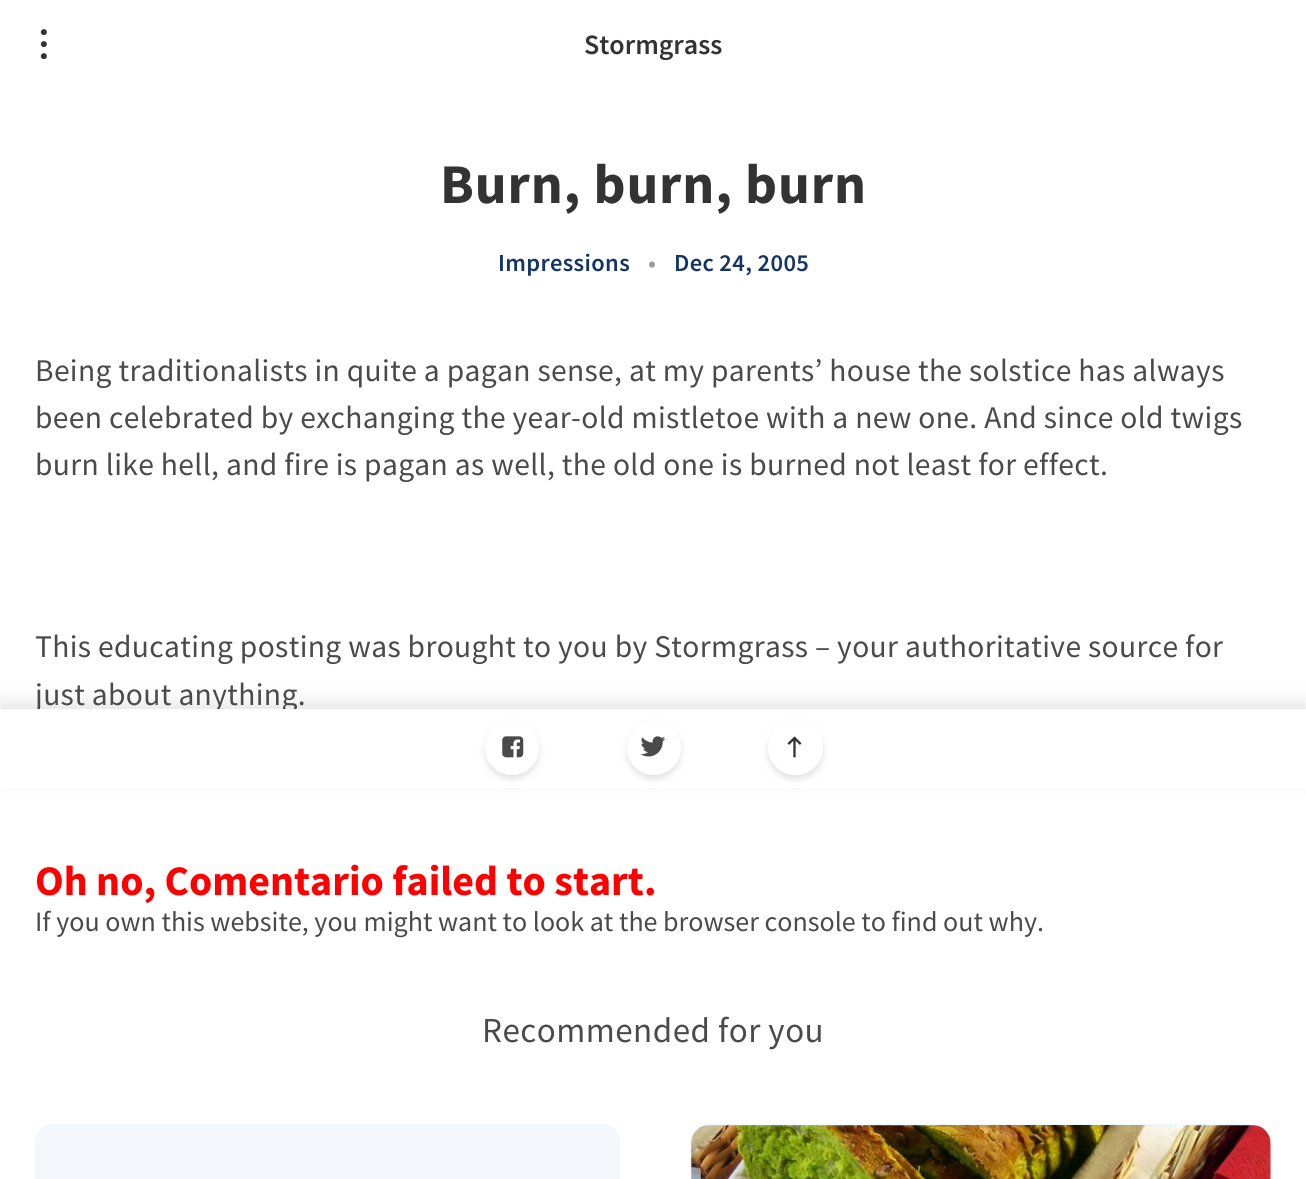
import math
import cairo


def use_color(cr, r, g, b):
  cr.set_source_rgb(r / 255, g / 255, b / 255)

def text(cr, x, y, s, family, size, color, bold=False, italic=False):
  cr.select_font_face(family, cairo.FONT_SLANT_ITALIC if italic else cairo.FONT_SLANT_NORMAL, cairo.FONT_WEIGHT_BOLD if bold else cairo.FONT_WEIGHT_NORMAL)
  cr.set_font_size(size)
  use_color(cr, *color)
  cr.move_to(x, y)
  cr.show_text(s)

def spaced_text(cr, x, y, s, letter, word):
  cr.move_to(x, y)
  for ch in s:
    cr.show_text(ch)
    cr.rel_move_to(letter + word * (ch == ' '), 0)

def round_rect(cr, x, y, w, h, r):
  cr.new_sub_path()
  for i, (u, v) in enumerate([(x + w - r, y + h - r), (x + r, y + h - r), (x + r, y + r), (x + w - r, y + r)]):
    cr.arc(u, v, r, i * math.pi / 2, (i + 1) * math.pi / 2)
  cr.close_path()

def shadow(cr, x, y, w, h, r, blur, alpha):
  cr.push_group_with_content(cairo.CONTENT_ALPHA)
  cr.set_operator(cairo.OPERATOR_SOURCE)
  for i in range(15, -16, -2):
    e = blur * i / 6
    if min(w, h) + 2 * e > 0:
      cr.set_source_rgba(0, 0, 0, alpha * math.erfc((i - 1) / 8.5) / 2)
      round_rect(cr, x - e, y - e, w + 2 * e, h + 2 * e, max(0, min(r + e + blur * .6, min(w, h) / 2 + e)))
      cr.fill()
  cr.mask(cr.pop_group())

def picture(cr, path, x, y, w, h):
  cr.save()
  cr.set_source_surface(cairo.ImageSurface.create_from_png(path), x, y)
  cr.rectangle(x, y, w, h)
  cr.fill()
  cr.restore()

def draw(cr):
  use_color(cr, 255, 255, 255)
  cr.paint()
  picture(cr, "img_01.png", 40, 29, 7, 31)
  cr.save()
  cr.set_fill_rule(cairo.FILL_RULE_EVEN_ODD)
  cr.new_path()
  cr.move_to(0, 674)
  cr.line_to(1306, 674)
  cr.line_to(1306, 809)
  cr.line_to(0, 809)
  cr.close_path()
  cr.move_to(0, 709)
  cr.line_to(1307, 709)
  cr.line_to(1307, 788)
  cr.line_to(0, 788)
  cr.close_path()
  cr.clip()
  use_color(cr, 0, 0, 0)
  shadow(cr, 0, 702, 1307, 79, 0, 9, 0.1)
  cr.restore()
  round_rect(cr, 36, 1125, 583, 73, 17)
  use_color(cr, 240, 248, 255)
  cr.stroke()
  use_color(cr, 244, 248, 253)
  cr.new_path()
  cr.move_to(55, 1125)
  cr.line_to(600, 1125)
  cr.curve_to(610, 1125, 618, 1133, 618, 1143)
  cr.line_to(618, 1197)
  cr.line_to(37, 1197)
  cr.line_to(37, 1143)
  cr.curve_to(37, 1133, 45, 1125, 55, 1125)
  cr.close_path()
  cr.fill()
  round_rect(cr, 691, 1125, 580, 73, 17)
  use_color(cr, 240, 248, 255)
  cr.stroke()
  use_color(cr, 244, 248, 253)
  cr.new_path()
  cr.move_to(709, 1125)
  cr.line_to(1253, 1125)
  cr.curve_to(1263, 1125, 1271, 1133, 1271, 1143)
  cr.line_to(1271, 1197)
  cr.line_to(691, 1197)
  cr.line_to(691, 1143)
  cr.curve_to(691, 1133, 699, 1125, 709, 1125)
  cr.close_path()
  cr.fill()
  picture(cr, "img_05.png", 691, 1125, 580, 54)
  text(cr, 584, 54, "Stormgrass", "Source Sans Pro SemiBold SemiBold", 28, (51, 51, 51))
  cr.select_font_face("Source Sans Pro", cairo.FONT_SLANT_NORMAL, cairo.FONT_WEIGHT_BOLD)
  cr.set_font_size(56)
  spaced_text(cr, 440, 203, "Burn, burn, burn", 0.9, 0)
  cr.select_font_face("Source Sans Pro SemiBold SemiBold")
  cr.set_font_size(24.5)
  use_color(cr, 19, 52, 103)
  spaced_text(cr, 498, 271, "Impressions", 0.35, 0)
  use_color(cr, 155, 155, 155)
  spaced_text(cr, 648, 271, "•", 0.35, 0)
  use_color(cr, 19, 52, 103)
  spaced_text(cr, 674, 271, "Dec 24, 2005", 0.35, 0)
  cr.select_font_face("Source Sans Pro")
  cr.set_font_size(31.5)
  use_color(cr, 74, 74, 74)
  spaced_text(cr, 35, 381, "Being traditionalists in quite a pagan sense, at my parents’ house the solstice has always", 0.35, 0)
  spaced_text(cr, 35, 428, "been celebrated by exchanging the year-old mistletoe with a new one. And since old twigs", 0.35, 0)
  spaced_text(cr, 35, 475, "burn like hell, and fire is pagan as well, the old one is burned not least for effect.", 0.35, 0)
  spaced_text(cr, 35, 657, "This educating posting was brought to you by Stormgrass – your authoritative source for", 0.35, 0)
  spaced_text(cr, 35, 705, "just about anything.", 0.35, 0)
  cr.set_source_rgba(1, 1, 1, 0.99)
  cr.rectangle(11, 709, 1285, 79)
  cr.fill()
  use_color(cr, 107, 107, 107)
  shadow(cr, 485, 725, 54, 54, 27, 3.5, 0.2)
  use_color(cr, 255, 255, 255)
  cr.arc(512, 748, 27, 0, 2 * math.pi)
  cr.fill()
  picture(cr, "img_02.png", 502, 736, 22, 22)
  use_color(cr, 107, 107, 107)
  shadow(cr, 627, 725, 54, 54, 27, 3.5, 0.2)
  use_color(cr, 255, 255, 255)
  cr.arc(654, 748, 27, 0, 2 * math.pi)
  cr.fill()
  picture(cr, "img_03.png", 640, 736, 26, 21)
  use_color(cr, 107, 107, 107)
  shadow(cr, 768, 725, 55, 54, 27, 3.5, 0.2)
  use_color(cr, 255, 255, 255)
  round_rect(cr, 768, 721, 55, 54, 27)
  cr.fill()
  picture(cr, "img_04.png", 787, 736, 15, 22)
  text(cr, 35, 895, "Oh no, Comentario failed to start.", "Source Sans Pro", 42, (255, 0, 0), bold=True)
  text(cr, 35, 931, "If you own this website, you might want to look at the browser console to find out why.", "Source Sans Pro", 28, (74, 74, 74))
  cr.set_font_size(35)
  spaced_text(cr, 482, 1042, "Recommended for you", 0.5, 0)


surface = cairo.ImageSurface(cairo.FORMAT_RGB24, 1306, 1179)
cr = cairo.Context(surface)
options = cairo.FontOptions()
options.set_hint_metrics(cairo.HINT_METRICS_OFF)
options.set_hint_style(cairo.HINT_STYLE_NONE)
cr.set_font_options(options)
cr.set_miter_limit(4)
draw(cr)
surface.write_to_png("out.png")
